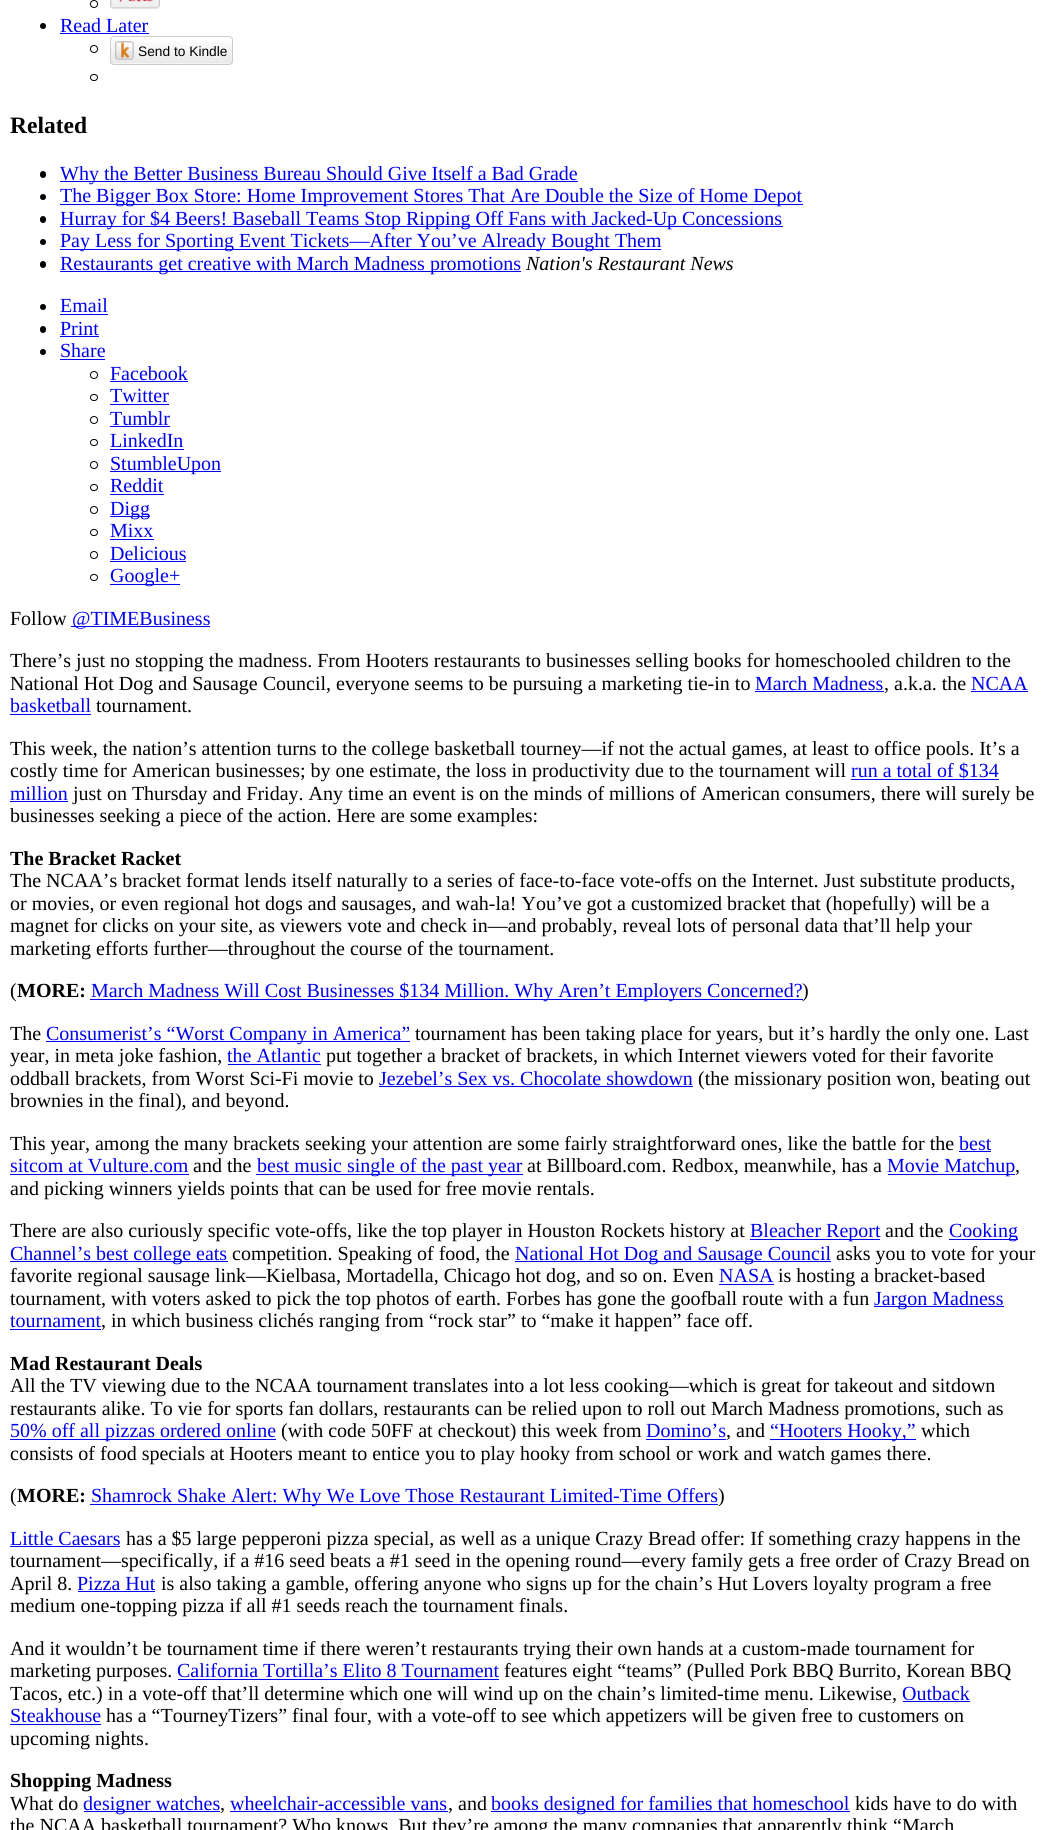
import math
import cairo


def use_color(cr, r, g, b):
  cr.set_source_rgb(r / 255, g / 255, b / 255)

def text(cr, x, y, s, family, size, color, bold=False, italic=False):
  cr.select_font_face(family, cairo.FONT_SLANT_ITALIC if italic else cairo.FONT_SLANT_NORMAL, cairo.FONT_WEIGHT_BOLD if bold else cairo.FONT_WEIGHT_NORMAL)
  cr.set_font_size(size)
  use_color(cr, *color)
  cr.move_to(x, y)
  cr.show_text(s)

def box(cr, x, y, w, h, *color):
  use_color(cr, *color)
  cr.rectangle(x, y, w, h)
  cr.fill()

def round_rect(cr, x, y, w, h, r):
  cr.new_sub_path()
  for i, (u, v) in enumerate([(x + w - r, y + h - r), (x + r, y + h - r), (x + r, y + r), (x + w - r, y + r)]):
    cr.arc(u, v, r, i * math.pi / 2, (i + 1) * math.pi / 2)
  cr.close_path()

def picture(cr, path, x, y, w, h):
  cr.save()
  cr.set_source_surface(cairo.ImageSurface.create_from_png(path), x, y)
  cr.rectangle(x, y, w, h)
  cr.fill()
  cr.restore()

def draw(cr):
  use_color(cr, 255, 255, 255)
  cr.paint()
  cr.arc(94, 4, 3.5, 0, 2 * math.pi)
  use_color(cr, 0, 0, 0)
  cr.set_line_width(1)
  cr.stroke()
  picture(cr, "img_01.png", 110, 0, 50, 9)
  cr.arc(43, 26, 3, 0, 2 * math.pi)
  cr.fill()
  box(cr, 60, 33, 89, 1, 0, 0, 238)
  cr.arc(94, 49, 3.5, 0, 2 * math.pi)
  use_color(cr, 0, 0, 0)
  cr.stroke()
  picture(cr, "img_02.png", 110, 42, 123, 22)
  round_rect(cr, 110.5, 36.5, 122, 28, 3.5)
  use_color(cr, 204, 204, 204)
  cr.stroke()
  picture(cr, "img_03.png", 115, 41, 19, 19)
  round_rect(cr, 90.5, 74.5, 7, 6, 3)
  use_color(cr, 0, 0, 0)
  cr.stroke()
  round_rect(cr, 40, 171, 6, 7, 3)
  cr.fill()
  box(cr, 60, 181, 518, 1, 0, 0, 238)
  use_color(cr, 0, 0, 0)
  cr.arc(43, 197, 3, 0, 2 * math.pi)
  cr.fill()
  box(cr, 60, 204, 743, 1, 0, 0, 238)
  use_color(cr, 0, 0, 0)
  round_rect(cr, 40, 216, 6, 7, 3)
  cr.fill()
  box(cr, 60, 226, 723, 1, 0, 0, 238)
  use_color(cr, 0, 0, 0)
  cr.arc(43, 242, 3, 0, 2 * math.pi)
  cr.fill()
  box(cr, 60, 249, 601, 1, 0, 0, 238)
  use_color(cr, 0, 0, 0)
  round_rect(cr, 40, 261, 6, 7, 3)
  cr.fill()
  box(cr, 60, 271, 461, 1, 0, 0, 238)
  use_color(cr, 0, 0, 0)
  cr.arc(43, 307, 3, 0, 2 * math.pi)
  cr.fill()
  box(cr, 60, 314, 48, 1, 0, 0, 238)
  use_color(cr, 0, 0, 0)
  round_rect(cr, 40, 326, 6, 7, 3)
  cr.fill()
  box(cr, 60, 336, 39, 1, 0, 0, 238)
  use_color(cr, 0, 0, 0)
  cr.arc(43, 352, 3, 0, 2 * math.pi)
  cr.fill()
  box(cr, 60, 359, 45, 1, 0, 0, 238)
  cr.arc(94, 375, 3.5, 0, 2 * math.pi)
  use_color(cr, 0, 0, 0)
  cr.stroke()
  box(cr, 110, 381, 78, 1, 0, 0, 238)
  round_rect(cr, 90.5, 394.5, 7, 6, 3)
  use_color(cr, 0, 0, 0)
  cr.stroke()
  box(cr, 110, 404, 59, 1, 0, 0, 238)
  cr.arc(94, 420, 3.5, 0, 2 * math.pi)
  use_color(cr, 0, 0, 0)
  cr.stroke()
  box(cr, 110, 426, 60, 1, 0, 0, 238)
  round_rect(cr, 90.5, 439.5, 7, 6, 3)
  use_color(cr, 0, 0, 0)
  cr.stroke()
  box(cr, 110, 449, 74, 1, 0, 0, 238)
  cr.arc(94, 465, 3.5, 0, 2 * math.pi)
  use_color(cr, 0, 0, 0)
  cr.stroke()
  box(cr, 110, 471, 111, 1, 0, 0, 238)
  round_rect(cr, 90.5, 484.5, 7, 6, 3)
  use_color(cr, 0, 0, 0)
  cr.stroke()
  box(cr, 110, 494, 54, 1, 0, 0, 238)
  cr.arc(94, 510, 3.5, 0, 2 * math.pi)
  use_color(cr, 0, 0, 0)
  cr.stroke()
  box(cr, 110, 516, 40, 1, 0, 0, 238)
  round_rect(cr, 90.5, 529.5, 7, 6, 3)
  use_color(cr, 0, 0, 0)
  cr.stroke()
  box(cr, 110, 539, 44, 1, 0, 0, 238)
  cr.arc(94, 555, 3.5, 0, 2 * math.pi)
  use_color(cr, 0, 0, 0)
  cr.stroke()
  box(cr, 110, 561, 76, 1, 0, 0, 238)
  round_rect(cr, 90.5, 574.5, 7, 6, 3)
  use_color(cr, 0, 0, 0)
  cr.stroke()
  box(cr, 110, 584, 70, 1, 0, 0, 238)
  box(cr, 71, 626, 139, 1, 0, 0, 238)
  box(cr, 755, 691, 129, 1, 0, 0, 238)
  box(cr, 971, 691, 57, 1, 0, 0, 238)
  box(cr, 10, 714, 81, 1, 0, 0, 238)
  box(cr, 851, 779, 148, 1, 0, 0, 238)
  box(cr, 10, 801, 58, 1, 0, 0, 238)
  box(cr, 90, 999, 713, 1, 0, 0, 238)
  box(cr, 46, 1041, 364, 1, 0, 0, 238)
  box(cr, 228, 1064, 93, 1, 0, 0, 238)
  box(cr, 379, 1086, 314, 1, 0, 0, 238)
  box(cr, 959, 1151, 32, 1, 0, 0, 238)
  box(cr, 10, 1174, 179, 1, 0, 0, 238)
  box(cr, 256, 1174, 267, 1, 0, 0, 238)
  box(cr, 888, 1174, 127, 1, 0, 0, 238)
  box(cr, 750, 1239, 130, 1, 0, 0, 238)
  box(cr, 949, 1239, 69, 1, 0, 0, 238)
  box(cr, 10, 1261, 218, 1, 0, 0, 238)
  box(cr, 515, 1261, 316, 1, 0, 0, 238)
  box(cr, 719, 1284, 55, 1, 0, 0, 238)
  box(cr, 874, 1306, 130, 1, 0, 0, 238)
  box(cr, 10, 1329, 91, 1, 0, 0, 238)
  box(cr, 10, 1439, 266, 1, 0, 0, 238)
  box(cr, 646, 1439, 80, 1, 0, 0, 238)
  box(cr, 770, 1439, 146, 1, 0, 0, 238)
  box(cr, 90, 1504, 628, 1, 0, 0, 238)
  box(cr, 10, 1546, 110, 1, 0, 0, 238)
  box(cr, 78, 1591, 77, 1, 0, 0, 238)
  box(cr, 178, 1679, 321, 1, 0, 0, 238)
  box(cr, 903, 1701, 67, 1, 0, 0, 238)
  box(cr, 10, 1724, 91, 1, 0, 0, 238)
  box(cr, 84, 1811, 136, 1, 0, 0, 238)
  box(cr, 230, 1811, 218, 1, 0, 0, 238)
  box(cr, 491, 1811, 359, 1, 0, 0, 238)
  text(cr, 60, 32, "Read Later", "Liberation Serif", 20, (0, 0, 238))
  text(cr, 138, 56, "Send to Kindle", "Liberation Sans", 13.75, (0, 0, 0))
  text(cr, 10, 133, "Related", "Liberation Serif", 23.5, (0, 0, 0), bold=True)
  text(cr, 60, 180, "Why the Better Business Bureau Should Give Itself a Bad Grade", "Liberation Serif", 20, (0, 0, 238))
  text(cr, 60, 202, "The Bigger Box Store: Home Improvement Stores That Are Double the Size of Home Depot", "Liberation Serif", 20, (0, 0, 238))
  text(cr, 60, 225, "Hurray for $4 Beers! Baseball Teams Stop Ripping Off Fans with Jacked-Up Concessions", "Liberation Serif", 20, (0, 0, 238))
  text(cr, 60, 247, "Pay Less for Sporting Event Tickets—After You’ve Already Bought Them", "Liberation Serif", 20, (0, 0, 238))
  text(cr, 60, 270, "Restaurants get creative with March Madness promotions", "Liberation Serif", 20, (0, 0, 238))
  text(cr, 526, 270, "Nation's Restaurant News", "Liberation Serif", 20, (0, 0, 0), italic=True)
  text(cr, 60, 312, "Email", "Liberation Serif", 20, (0, 0, 238))
  text(cr, 60, 335, "Print", "Liberation Serif", 20, (0, 0, 238))
  text(cr, 60, 357, "Share", "Liberation Serif", 20, (0, 0, 238))
  text(cr, 110, 380, "Facebook", "Liberation Serif", 20, (0, 0, 238))
  text(cr, 110, 402, "Twitter", "Liberation Serif", 20, (0, 0, 238))
  text(cr, 110, 425, "Tumblr", "Liberation Serif", 20, (0, 0, 238))
  text(cr, 110, 447, "LinkedIn", "Liberation Serif", 20, (0, 0, 238))
  text(cr, 110, 470, "StumbleUpon", "Liberation Serif", 20, (0, 0, 238))
  text(cr, 110, 492, "Reddit", "Liberation Serif", 20, (0, 0, 238))
  text(cr, 110, 515, "Digg", "Liberation Serif", 20, (0, 0, 238))
  text(cr, 110, 537, "Mixx", "Liberation Serif", 20, (0, 0, 238))
  text(cr, 110, 560, "Delicious", "Liberation Serif", 20, (0, 0, 238))
  text(cr, 110, 582, "Google+", "Liberation Serif", 20, (0, 0, 238))
  text(cr, 10, 625, "Follow", "Liberation Serif", 20, (0, 0, 0))
  text(cr, 72, 625, "@TIMEBusiness", "Liberation Serif", 20, (0, 0, 238))
  text(cr, 10, 667, "There’s just no stopping the madness. From Hooters restaurants to businesses selling books for homeschooled children to the", "Liberation Serif", 20, (0, 0, 0))
  text(cr, 10, 690, "National Hot Dog and Sausage Council, everyone seems to be pursuing a marketing tie-in to", "Liberation Serif", 20, (0, 0, 0))
  text(cr, 755, 690, "March Madness", "Liberation Serif", 20, (0, 0, 238))
  text(cr, 884, 690, ", a.k.a. the", "Liberation Serif", 20, (0, 0, 0))
  text(cr, 971, 690, "NCAA", "Liberation Serif", 20, (0, 0, 238))
  text(cr, 10, 712, "basketball", "Liberation Serif", 20, (0, 0, 238))
  text(cr, 96, 712, "tournament.", "Liberation Serif", 20, (0, 0, 0))
  text(cr, 10, 755, "This week, the nation’s attention turns to the college basketball tourney—if not the actual games, at least to office pools. It’s a", "Liberation Serif", 20, (0, 0, 0))
  text(cr, 10, 777, "costly time for American businesses; by one estimate, the loss in productivity due to the tournament will", "Liberation Serif", 20, (0, 0, 0))
  text(cr, 851, 777, "run a total of $134", "Liberation Serif", 20, (0, 0, 238))
  text(cr, 10, 800, "million", "Liberation Serif", 20, (0, 0, 238))
  text(cr, 73, 800, "just on Thursday and Friday. Any time an event is on the minds of millions of American consumers, there will surely be", "Liberation Serif", 20, (0, 0, 0))
  text(cr, 10, 822, "businesses seeking a piece of the action. Here are some examples:", "Liberation Serif", 20, (0, 0, 0))
  text(cr, 10, 865, "The Bracket Racket", "Liberation Serif", 20, (0, 0, 0), bold=True)
  text(cr, 10, 887, "The NCAA’s bracket format lends itself naturally to a series of face-to-face vote-offs on the Internet. Just substitute products,", "Liberation Serif", 20, (0, 0, 0))
  text(cr, 10, 910, "or movies, or even regional hot dogs and sausages, and wah-la! You’ve got a customized bracket that (hopefully) will be a", "Liberation Serif", 20, (0, 0, 0))
  text(cr, 10, 932, "magnet for clicks on your site, as viewers vote and check in—and probably, reveal lots of personal data that’ll help your", "Liberation Serif", 20, (0, 0, 0))
  text(cr, 10, 955, "marketing efforts further—throughout the course of the tournament.", "Liberation Serif", 20, (0, 0, 0))
  text(cr, 10, 997, "(", "Liberation Serif", 20, (0, 0, 0))
  text(cr, 17, 997, "MORE:", "Liberation Serif", 20, (0, 0, 0), bold=True)
  text(cr, 91, 997, "March Madness Will Cost Businesses $134 Million. Why Aren’t Employers Concerned?", "Liberation Serif", 20, (0, 0, 238))
  text(cr, 802, 997, ")", "Liberation Serif", 20, (0, 0, 0))
  text(cr, 10, 1040, "The", "Liberation Serif", 20, (0, 0, 0))
  text(cr, 46, 1040, "Consumerist’s “Worst Company in America”", "Liberation Serif", 20, (0, 0, 238))
  text(cr, 415, 1040, "tournament has been taking place for years, but it’s hardly the only one. Last", "Liberation Serif", 20, (0, 0, 0))
  text(cr, 10, 1062, "year, in meta joke fashion,", "Liberation Serif", 20, (0, 0, 0))
  text(cr, 227, 1062, "the Atlantic", "Liberation Serif", 20, (0, 0, 238))
  text(cr, 326, 1062, "put together a bracket of brackets, in which Internet viewers voted for their favorite", "Liberation Serif", 20, (0, 0, 0))
  text(cr, 10, 1085, "oddball brackets, from Worst Sci-Fi movie to", "Liberation Serif", 20, (0, 0, 0))
  text(cr, 379, 1085, "Jezebel’s Sex vs. Chocolate showdown", "Liberation Serif", 20, (0, 0, 238))
  text(cr, 698, 1085, "(the missionary position won, beating out", "Liberation Serif", 20, (0, 0, 0))
  text(cr, 10, 1107, "brownies in the final), and beyond.", "Liberation Serif", 20, (0, 0, 0))
  text(cr, 10, 1150, "This year, among the many brackets seeking your attention are some fairly straightforward ones, like the battle for the", "Liberation Serif", 20, (0, 0, 0))
  text(cr, 959, 1150, "best", "Liberation Serif", 20, (0, 0, 238))
  text(cr, 10, 1172, "sitcom at Vulture.com", "Liberation Serif", 20, (0, 0, 238))
  text(cr, 193, 1172, "and the", "Liberation Serif", 20, (0, 0, 0))
  text(cr, 257, 1172, "best music single of the past year", "Liberation Serif", 20, (0, 0, 238))
  text(cr, 527, 1172, "at Billboard.com. Redbox, meanwhile, has a", "Liberation Serif", 20, (0, 0, 0))
  text(cr, 887, 1172, "Movie Matchup", "Liberation Serif", 20, (0, 0, 238))
  text(cr, 1015, 1172, ",", "Liberation Serif", 20, (0, 0, 0))
  text(cr, 10, 1195, "and picking winners yields points that can be used for free movie rentals.", "Liberation Serif", 20, (0, 0, 0))
  text(cr, 10, 1237, "There are also curiously specific vote-offs, like the top player in Houston Rockets history at", "Liberation Serif", 20, (0, 0, 0))
  text(cr, 750, 1237, "Bleacher Report", "Liberation Serif", 20, (0, 0, 238))
  text(cr, 885, 1237, "and the", "Liberation Serif", 20, (0, 0, 0))
  text(cr, 949, 1237, "Cooking", "Liberation Serif", 20, (0, 0, 238))
  text(cr, 10, 1260, "Channel’s best college eats", "Liberation Serif", 20, (0, 0, 238))
  text(cr, 232, 1260, "competition. Speaking of food, the", "Liberation Serif", 20, (0, 0, 0))
  text(cr, 515, 1260, "National Hot Dog and Sausage Council", "Liberation Serif", 20, (0, 0, 238))
  text(cr, 836, 1260, "asks you to vote for your", "Liberation Serif", 20, (0, 0, 0))
  text(cr, 10, 1282, "favorite regional sausage link—Kielbasa, Mortadella, Chicago hot dog, and so on. Even", "Liberation Serif", 20, (0, 0, 0))
  text(cr, 719, 1282, "NASA", "Liberation Serif", 20, (0, 0, 238))
  text(cr, 778, 1282, "is hosting a bracket-based", "Liberation Serif", 20, (0, 0, 0))
  text(cr, 10, 1305, "tournament, with voters asked to pick the top photos of earth. Forbes has gone the goofball route with a fun", "Liberation Serif", 20, (0, 0, 0))
  text(cr, 874, 1305, "Jargon Madness", "Liberation Serif", 20, (0, 0, 238))
  text(cr, 10, 1327, "tournament", "Liberation Serif", 20, (0, 0, 238))
  text(cr, 101, 1327, ", in which business clichés ranging from “rock star” to “make it happen” face off.", "Liberation Serif", 20, (0, 0, 0))
  text(cr, 10, 1370, "Mad Restaurant Deals", "Liberation Serif", 20, (0, 0, 0), bold=True)
  text(cr, 10, 1392, "All the TV viewing due to the NCAA tournament translates into a lot less cooking—which is great for takeout and sitdown", "Liberation Serif", 20, (0, 0, 0))
  text(cr, 10, 1415, "restaurants alike. To vie for sports fan dollars, restaurants can be relied upon to roll out March Madness promotions, such as", "Liberation Serif", 20, (0, 0, 0))
  text(cr, 10, 1437, "50% off all pizzas ordered online", "Liberation Serif", 20, (0, 0, 238))
  text(cr, 281, 1437, "(with code 50FF at checkout) this week from", "Liberation Serif", 20, (0, 0, 0))
  text(cr, 646, 1437, "Domino’s", "Liberation Serif", 20, (0, 0, 238))
  text(cr, 726, 1437, ", and", "Liberation Serif", 20, (0, 0, 0))
  text(cr, 770, 1437, "“Hooters Hooky,”", "Liberation Serif", 20, (0, 0, 238))
  text(cr, 921, 1437, "which", "Liberation Serif", 20, (0, 0, 0))
  text(cr, 10, 1460, "consists of food specials at Hooters meant to entice you to play hooky from school or work and watch games there.", "Liberation Serif", 20, (0, 0, 0))
  text(cr, 10, 1502, "(", "Liberation Serif", 20, (0, 0, 0))
  text(cr, 17, 1502, "MORE:", "Liberation Serif", 20, (0, 0, 0), bold=True)
  text(cr, 91, 1502, "Shamrock Shake Alert: Why We Love Those Restaurant Limited-Time Offers", "Liberation Serif", 20, (0, 0, 238))
  text(cr, 718, 1502, ")", "Liberation Serif", 20, (0, 0, 0))
  text(cr, 10, 1545, "Little Caesars", "Liberation Serif", 20, (0, 0, 238))
  text(cr, 126, 1545, "has a $5 large pepperoni pizza special, as well as a unique Crazy Bread offer: If something crazy happens in the", "Liberation Serif", 20, (0, 0, 0))
  text(cr, 10, 1567, "tournament—specifically, if a #16 seed beats a #1 seed in the opening round—every family gets a free order of Crazy Bread on", "Liberation Serif", 20, (0, 0, 0))
  text(cr, 10, 1590, "April 8.", "Liberation Serif", 20, (0, 0, 0))
  text(cr, 77, 1590, "Pizza Hut", "Liberation Serif", 20, (0, 0, 238))
  text(cr, 161, 1590, "is also taking a gamble, offering anyone who signs up for the chain’s Hut Lovers loyalty program a free", "Liberation Serif", 20, (0, 0, 0))
  text(cr, 10, 1612, "medium one-topping pizza if all #1 seeds reach the tournament finals.", "Liberation Serif", 20, (0, 0, 0))
  text(cr, 10, 1655, "And it wouldn’t be tournament time if there weren’t restaurants trying their own hands at a custom-made tournament for", "Liberation Serif", 20, (0, 0, 0))
  text(cr, 10, 1677, "marketing purposes.", "Liberation Serif", 20, (0, 0, 0))
  text(cr, 177, 1677, "California Tortilla’s Elito 8 Tournament", "Liberation Serif", 20, (0, 0, 238))
  text(cr, 504, 1677, "features eight “teams” (Pulled Pork BBQ Burrito, Korean BBQ", "Liberation Serif", 20, (0, 0, 0))
  text(cr, 10, 1700, "Tacos, etc.) in a vote-off that’ll determine which one will wind up on the chain’s limited-time menu. Likewise,", "Liberation Serif", 20, (0, 0, 0))
  text(cr, 902, 1700, "Outback", "Liberation Serif", 20, (0, 0, 238))
  text(cr, 10, 1722, "Steakhouse", "Liberation Serif", 20, (0, 0, 238))
  text(cr, 106, 1722, "has a “TourneyTizers” final four, with a vote-off to see which appetizers will be given free to customers on", "Liberation Serif", 20, (0, 0, 0))
  text(cr, 10, 1745, "upcoming nights.", "Liberation Serif", 20, (0, 0, 0))
  text(cr, 10, 1787, "Shopping Madness", "Liberation Serif", 20, (0, 0, 0), bold=True)
  text(cr, 10, 1810, "What do", "Liberation Serif", 20, (0, 0, 0))
  text(cr, 83, 1810, "designer watches", "Liberation Serif", 20, (0, 0, 238))
  text(cr, 220, 1810, ",", "Liberation Serif", 20, (0, 0, 0))
  text(cr, 230, 1810, "wheelchair-accessible vans", "Liberation Serif", 20, (0, 0, 238))
  text(cr, 448, 1810, ", and", "Liberation Serif", 20, (0, 0, 0))
  text(cr, 491, 1810, "books designed for families that homeschool", "Liberation Serif", 20, (0, 0, 238))
  text(cr, 855, 1810, "kids have to do with", "Liberation Serif", 20, (0, 0, 0))
  text(cr, 10, 1832, "the NCAA basketball tournament? Who knows. But they’re among the many companies that apparently think “March", "Liberation Serif", 20, (0, 0, 0))


surface = cairo.ImageSurface(cairo.FORMAT_RGB24, 1046, 1830)
cr = cairo.Context(surface)
options = cairo.FontOptions()
options.set_hint_metrics(cairo.HINT_METRICS_OFF)
options.set_hint_style(cairo.HINT_STYLE_NONE)
cr.set_font_options(options)
cr.set_miter_limit(4)
draw(cr)
surface.write_to_png("out.png")
